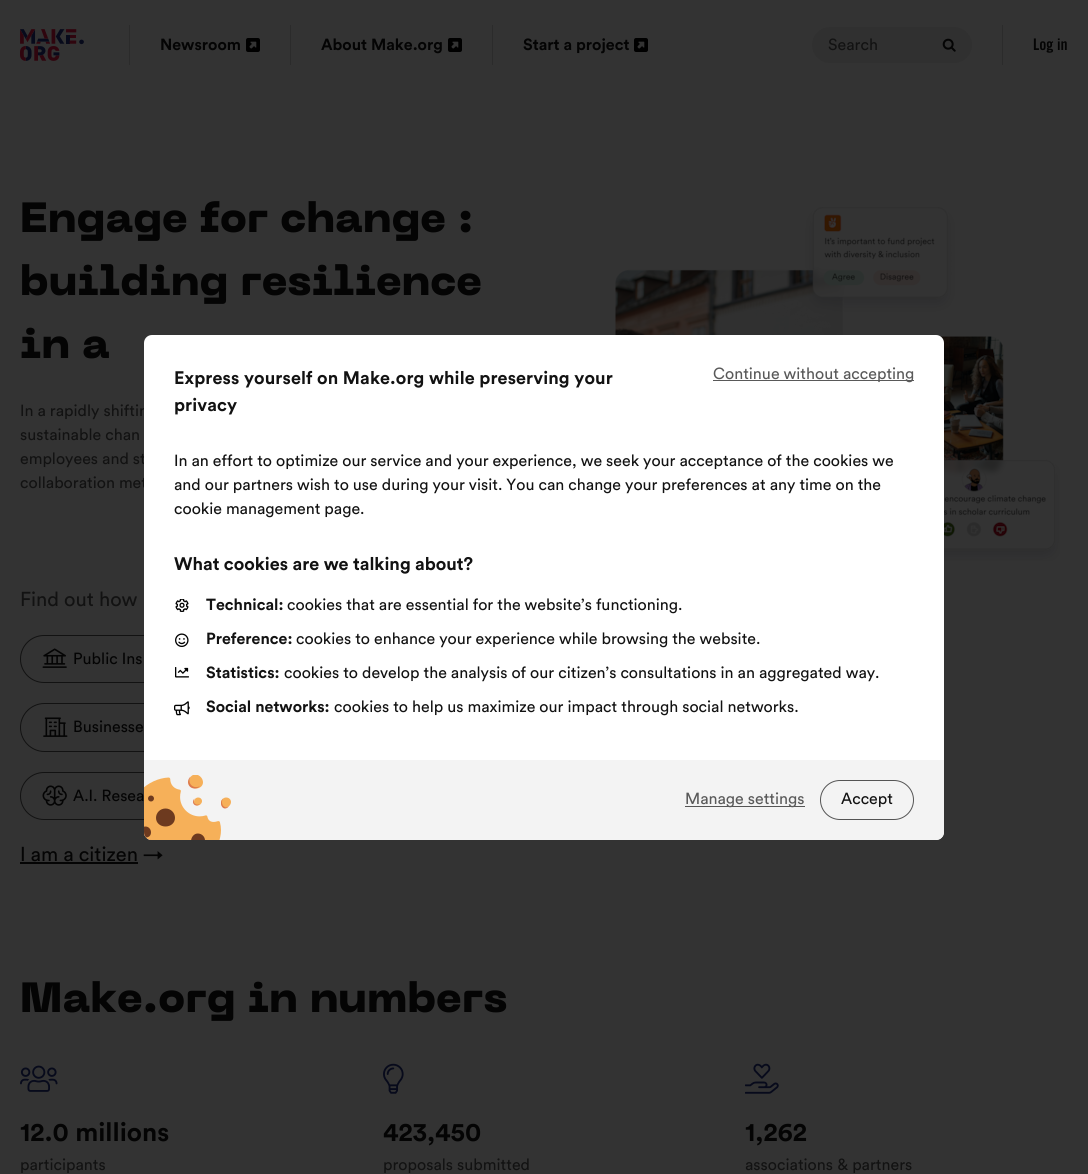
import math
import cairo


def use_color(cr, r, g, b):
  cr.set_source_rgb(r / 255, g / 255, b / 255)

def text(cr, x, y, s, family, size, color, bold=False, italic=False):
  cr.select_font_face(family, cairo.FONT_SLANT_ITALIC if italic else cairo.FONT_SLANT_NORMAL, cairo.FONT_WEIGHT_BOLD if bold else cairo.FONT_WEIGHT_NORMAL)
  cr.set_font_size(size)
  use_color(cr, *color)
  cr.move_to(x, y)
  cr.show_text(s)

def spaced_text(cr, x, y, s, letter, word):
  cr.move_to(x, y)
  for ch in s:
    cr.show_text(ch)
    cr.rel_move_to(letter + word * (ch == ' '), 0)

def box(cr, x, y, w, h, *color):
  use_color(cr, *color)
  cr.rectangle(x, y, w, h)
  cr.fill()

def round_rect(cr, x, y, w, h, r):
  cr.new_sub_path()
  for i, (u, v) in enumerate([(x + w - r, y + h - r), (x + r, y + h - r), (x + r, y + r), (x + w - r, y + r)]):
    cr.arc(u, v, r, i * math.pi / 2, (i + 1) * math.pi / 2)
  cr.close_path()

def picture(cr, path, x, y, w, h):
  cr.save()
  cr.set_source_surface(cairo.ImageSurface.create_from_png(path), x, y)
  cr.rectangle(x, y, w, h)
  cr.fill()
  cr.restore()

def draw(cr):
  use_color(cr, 51, 51, 51)
  cr.paint()
  picture(cr, "img_01.png", 20, 29, 64, 32)
  box(cr, 129, 25, 1, 40, 43, 43, 43)
  picture(cr, "img_02.png", 246, 38, 14, 14)
  box(cr, 290, 25, 1, 40, 43, 43, 43)
  picture(cr, "img_02.png", 448, 38, 14, 14)
  box(cr, 492, 25, 1, 40, 43, 43, 43)
  picture(cr, "img_02.png", 634, 38, 14, 14)
  use_color(cr, 48, 48, 48)
  round_rect(cr, 812, 27, 160, 36, 18)
  cr.fill()
  picture(cr, "img_03.png", 942, 38, 14, 14)
  box(cr, 1002, 25, 1, 40, 43, 43, 43)
  round_rect(cr, 20.5, 635.5, 202, 47, 23.5)
  use_color(cr, 18, 18, 18)
  cr.set_line_width(1)
  cr.stroke()
  picture(cr, "img_04.png", 42, 648, 25, 20)
  round_rect(cr, 20.5, 703.5, 151, 48, 24)
  cr.stroke()
  picture(cr, "img_05.png", 43, 717, 25, 20)
  round_rect(cr, 20.5, 772.5, 168, 47, 23.5)
  cr.stroke()
  picture(cr, "img_06.png", 42, 785, 25, 21)
  box(cr, 20, 862, 118, 2, 4, 4, 4)
  picture(cr, "img_07.png", 615, 207, 445, 354)
  picture(cr, "img_08.png", 20, 1065, 38, 27)
  picture(cr, "img_09.png", 383, 1063, 21, 31)
  picture(cr, "img_10.png", 745, 1063, 34, 31)
  text(cr, 160, 50, "Newsroom", "Circular", 16, (4, 4, 4), bold=True)
  text(cr, 321, 50, "About Make.org", "Circular", 16, (4, 4, 4), bold=True)
  text(cr, 523, 50, "Start a project", "Circular", 16, (4, 4, 4), bold=True)
  text(cr, 828, 50, "Search", "Circular", 16, (18, 18, 18))
  text(cr, 1033, 50, "Log in", "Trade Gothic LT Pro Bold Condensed", 16, (4, 4, 4))
  cr.select_font_face("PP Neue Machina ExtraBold")
  cr.set_font_size(42)
  spaced_text(cr, 20, 232, "Engage for change :", 0.5, 0)
  spaced_text(cr, 20, 295, "building resilience", 0.5, 0)
  spaced_text(cr, 20, 358, "in a", 0.5, 0)
  text(cr, 20, 416, "In a rapidly shiftin", "Circular", 16, (18, 18, 18))
  text(cr, 20, 440, "sustainable chan", "Circular", 16, (18, 18, 18))
  text(cr, 20, 464, "employees and st", "Circular", 16, (18, 18, 18))
  text(cr, 20, 488, "collaboration met", "Circular", 16, (18, 18, 18))
  text(cr, 20, 606, "Find out how", "Circular", 20, (18, 18, 18))
  text(cr, 73, 664, "Public Ins", "Circular", 16, (4, 4, 4))
  text(cr, 73, 732, "Businesse", "Circular", 16, (4, 4, 4))
  text(cr, 73, 801, "A.I. Resea", "Circular", 16, (4, 4, 4))
  text(cr, 20, 861, "I am a citizen →", "Circular", 20, (4, 4, 4))
  cr.select_font_face("PP Neue Machina ExtraBold")
  cr.set_font_size(42)
  spaced_text(cr, 20, 1012, "Make.org in numbers", 0.5, 0)
  text(cr, 20, 1141, "12.0 millions", "Circular", 26, (4, 4, 4), bold=True)
  text(cr, 20, 1170, "participants", "Circular", 16, (18, 18, 18))
  text(cr, 383, 1141, "423,450", "Circular", 26, (4, 4, 4), bold=True)
  text(cr, 383, 1170, "proposals submitted", "Circular", 16, (18, 18, 18))
  text(cr, 745, 1141, "1,262", "Circular", 26, (4, 4, 4), bold=True)
  text(cr, 745, 1170, "associations & partners", "Circular", 16, (18, 18, 18))
  use_color(cr, 255, 255, 255)
  round_rect(cr, 144, 335, 800, 505, 8)
  cr.fill()
  cr.select_font_face("Circular", cairo.FONT_SLANT_NORMAL, cairo.FONT_WEIGHT_BOLD)
  cr.set_font_size(18)
  use_color(cr, 18, 18, 18)
  spaced_text(cr, 174, 384, "Express yourself on Make.org while preserving your", 0.1, 0)
  spaced_text(cr, 174, 411, "privacy", 0.1, 0)
  box(cr, 713, 380, 201, 1, 89, 89, 89)
  text(cr, 713, 379, "Continue without accepting", "Circular", 16, (89, 89, 89))
  text(cr, 174, 466, "In an effort to optimize our service and your experience, we seek your acceptance of the cookies we", "Circular", 16, (18, 18, 18))
  text(cr, 174, 490, "and our partners wish to use during your visit. You can change your preferences at any time on the", "Circular", 16, (18, 18, 18))
  text(cr, 174, 514, "cookie management page.", "Circular", 16, (18, 18, 18))
  text(cr, 174, 570, "What cookies are we talking about?", "Circular", 18, (18, 18, 18), bold=True)
  picture(cr, "img_11.png", 175, 599, 14, 13)
  text(cr, 206, 610, "Technical:", "Circular", 16, (18, 18, 18), bold=True)
  text(cr, 287, 610, "cookies that are essential for the website’s functioning.", "Circular", 16, (18, 18, 18))
  picture(cr, "img_12.png", 175, 633, 14, 14)
  text(cr, 206, 644, "Preference:", "Circular", 16, (18, 18, 18), bold=True)
  text(cr, 296, 644, "cookies to enhance your experience while browsing the website.", "Circular", 16, (18, 18, 18))
  picture(cr, "img_13.png", 175, 667, 14, 11)
  text(cr, 206, 678, "Statistics:", "Circular", 16, (18, 18, 18), bold=True)
  text(cr, 284, 678, "cookies to develop the analysis of our citizen’s consultations in an aggregated way.", "Circular", 16, (18, 18, 18))
  picture(cr, "img_14.png", 174, 701, 16, 15)
  text(cr, 206, 712, "Social networks:", "Circular", 16, (18, 18, 18), bold=True)
  text(cr, 334, 712, "cookies to help us maximize our impact through social networks.", "Circular", 16, (18, 18, 18))
  use_color(cr, 243, 243, 243)
  cr.new_path()
  cr.move_to(144, 760)
  cr.line_to(944, 760)
  cr.line_to(944, 832)
  cr.curve_to(944, 836.5, 940.5, 840, 936, 840)
  cr.line_to(152, 840)
  cr.curve_to(147.5, 840, 144, 836.5, 144, 832)
  cr.close_path()
  cr.fill()
  picture(cr, "img_15.png", 144, 775, 87, 65)
  box(cr, 685, 806, 120, 1, 85, 85, 85)
  text(cr, 685, 804, "Manage settings", "Circular", 16, (89, 89, 89))
  round_rect(cr, 820.5, 780.5, 93, 39, 19.5)
  use_color(cr, 85, 85, 85)
  cr.stroke()
  text(cr, 841, 804, "Accept", "Circular", 16, (18, 18, 18))


surface = cairo.ImageSurface(cairo.FORMAT_RGB24, 1088, 1174)
cr = cairo.Context(surface)
options = cairo.FontOptions()
options.set_hint_metrics(cairo.HINT_METRICS_OFF)
options.set_hint_style(cairo.HINT_STYLE_NONE)
cr.set_font_options(options)
cr.set_miter_limit(4)
draw(cr)
surface.write_to_png("out.png")
